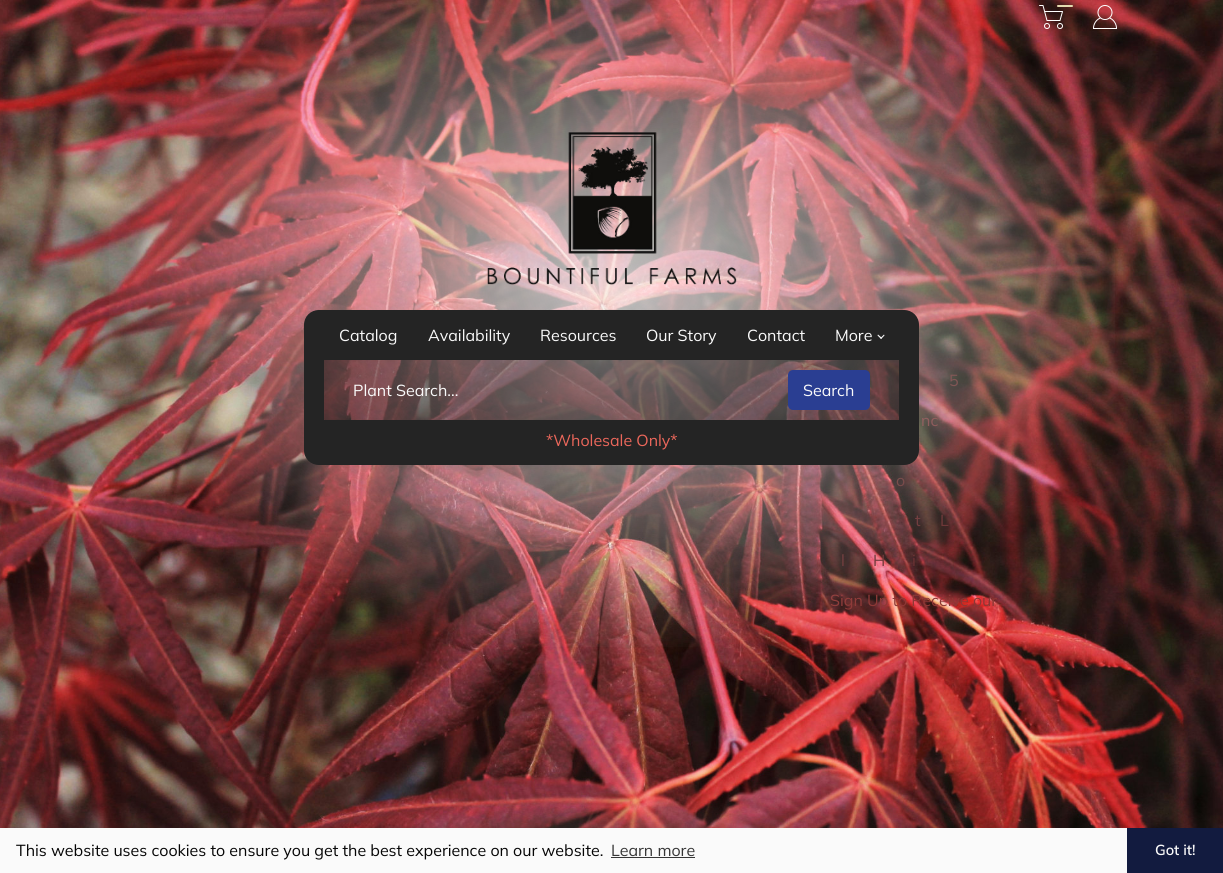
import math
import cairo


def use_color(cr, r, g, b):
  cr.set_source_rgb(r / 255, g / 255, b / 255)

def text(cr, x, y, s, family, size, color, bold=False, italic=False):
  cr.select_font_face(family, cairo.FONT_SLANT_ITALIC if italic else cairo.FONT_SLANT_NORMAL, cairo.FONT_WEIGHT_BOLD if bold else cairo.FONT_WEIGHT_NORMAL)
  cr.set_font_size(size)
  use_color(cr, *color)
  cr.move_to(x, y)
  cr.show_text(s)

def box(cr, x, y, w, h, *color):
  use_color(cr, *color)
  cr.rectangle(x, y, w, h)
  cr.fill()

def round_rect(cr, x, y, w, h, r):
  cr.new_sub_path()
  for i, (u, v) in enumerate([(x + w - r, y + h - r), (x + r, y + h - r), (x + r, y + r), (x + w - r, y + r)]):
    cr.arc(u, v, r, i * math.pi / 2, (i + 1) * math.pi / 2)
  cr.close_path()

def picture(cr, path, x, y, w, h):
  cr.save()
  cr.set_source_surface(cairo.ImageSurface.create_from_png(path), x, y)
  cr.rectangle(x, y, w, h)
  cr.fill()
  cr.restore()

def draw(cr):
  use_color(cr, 255, 255, 255)
  cr.paint()
  picture(cr, "img_01.png", 0, 0, 1223, 828)
  box(cr, 0, 828, 1127, 45, 250, 250, 250)
  box(cr, 611, 857, 84, 1, 54, 54, 54)
  box(cr, 1127, 828, 96, 45, 18, 27, 63)
  text(cr, 949, 386, "5", "Mulish", 16, (94, 39, 38))
  text(cr, 921, 426, "nc", "Mulish", 16, (114, 50, 50))
  text(cr, 896, 486, "o", "Mulish", 16, (94, 39, 38))
  text(cr, 915, 526, "t", "Mulish", 16, (100, 41, 42))
  text(cr, 940, 526, "L", "Mulish", 16, (100, 41, 42))
  text(cr, 841, 566, "l", "Mulish", 16, (100, 41, 42))
  text(cr, 873, 566, "H", "Mulish", 16, (100, 41, 42))
  text(cr, 912, 566, "i", "Mulish", 16, (100, 41, 42))
  text(cr, 830, 606, "Sign Up to Receive our", "Mulish", 16, (141, 55, 53))
  gradient = cairo.RadialGradient(0, 0, 0, 0, 0, 1)
  gradient.set_matrix(cairo.Matrix(1 / 865, 0, 0, 1 / 617, -1 * 612 / 865, -1 * 287 / 617))
  gradient.add_color_stop_rgba(0, 1, 1, 1, 0.75)
  gradient.add_color_stop_rgba(0.6, 1, 1, 1, 0)
  cr.set_source(gradient)
  cr.rectangle(109, 0, 1006, 647)
  cr.fill()
  use_color(cr, 36, 36, 36)
  cr.new_path()
  cr.move_to(319, 310)
  cr.line_to(904, 310)
  cr.curve_to(912.5, 310, 919, 316.5, 919, 325)
  cr.line_to(919, 360)
  cr.line_to(304, 360)
  cr.line_to(304, 325)
  cr.curve_to(304, 316.5, 310.5, 310, 319, 310)
  cr.close_path()
  cr.fill()
  use_color(cr, 250, 250, 250)
  cr.new_path()
  cr.move_to(880.5, 338)
  cr.line_to(884, 334.5)
  cr.line_to(884.5, 335.5)
  cr.line_to(881, 339)
  cr.close_path()
  cr.fill()
  cr.new_path()
  cr.move_to(877.5, 335.5)
  cr.line_to(878, 334.5)
  cr.line_to(882, 338)
  cr.line_to(881, 339)
  cr.close_path()
  cr.fill()
  text(cr, 835, 341, "More", "Mulish", 16, (250, 250, 250))
  picture(cr, "img_02.png", 1039, 5, 24, 24)
  use_color(cr, 227, 218, 175)
  round_rect(cr, 1057, 5, 16, 2, 1)
  cr.fill()
  text(cr, 747, 341, "Contact", "Mulish", 16, (250, 250, 250))
  text(cr, 646, 341, "Our Story", "Mulish", 16, (250, 250, 250))
  text(cr, 540, 341, "Resources", "Mulish", 16, (250, 250, 250))
  text(cr, 428, 341, "Availability", "Mulish", 16, (250, 250, 250))
  text(cr, 339, 341, "Catalog", "Mulish", 16, (250, 250, 250))
  picture(cr, "img_04.png", 487, 132, 250, 153)
  picture(cr, "img_03.png", 1093, 5, 24, 24)
  cr.set_source_rgba(0, 0, 0, 0.4)
  cr.rectangle(324, 360, 575, 60)
  cr.fill()
  box(cr, 899, 360, 20, 60, 36, 36, 36)
  box(cr, 304, 360, 20, 60, 36, 36, 36)
  text(cr, 353, 396, "Plant Search...", "Mulish", 16, (250, 250, 250))
  use_color(cr, 42, 62, 146)
  round_rect(cr, 788, 370, 82, 40, 5)
  cr.fill()
  text(cr, 803, 396, "Search", "Mulish", 16, (250, 250, 250))
  use_color(cr, 36, 36, 36)
  cr.new_path()
  cr.move_to(304, 420)
  cr.line_to(919, 420)
  cr.line_to(919, 450)
  cr.curve_to(919, 458.5, 912.5, 465, 904, 465)
  cr.line_to(319, 465)
  cr.curve_to(310.5, 465, 304, 458.5, 304, 450)
  cr.close_path()
  cr.fill()
  text(cr, 546, 446, "*Wholesale Only*", "Mulish", 16, (236, 103, 91))
  text(cr, 16, 856, "This website uses cookies to ensure you get the best experience on our website.", "Mulish", 16, (5, 5, 5))
  text(cr, 611, 856, "Learn more", "Mulish", 16, (54, 54, 54))
  text(cr, 1155, 855, "Got it!", "Mulish SemiBold", 14.5, (250, 250, 250))


surface = cairo.ImageSurface(cairo.FORMAT_RGB24, 1223, 873)
cr = cairo.Context(surface)
options = cairo.FontOptions()
options.set_hint_metrics(cairo.HINT_METRICS_OFF)
options.set_hint_style(cairo.HINT_STYLE_NONE)
cr.set_font_options(options)
cr.set_miter_limit(4)
draw(cr)
surface.write_to_png("out.png")
